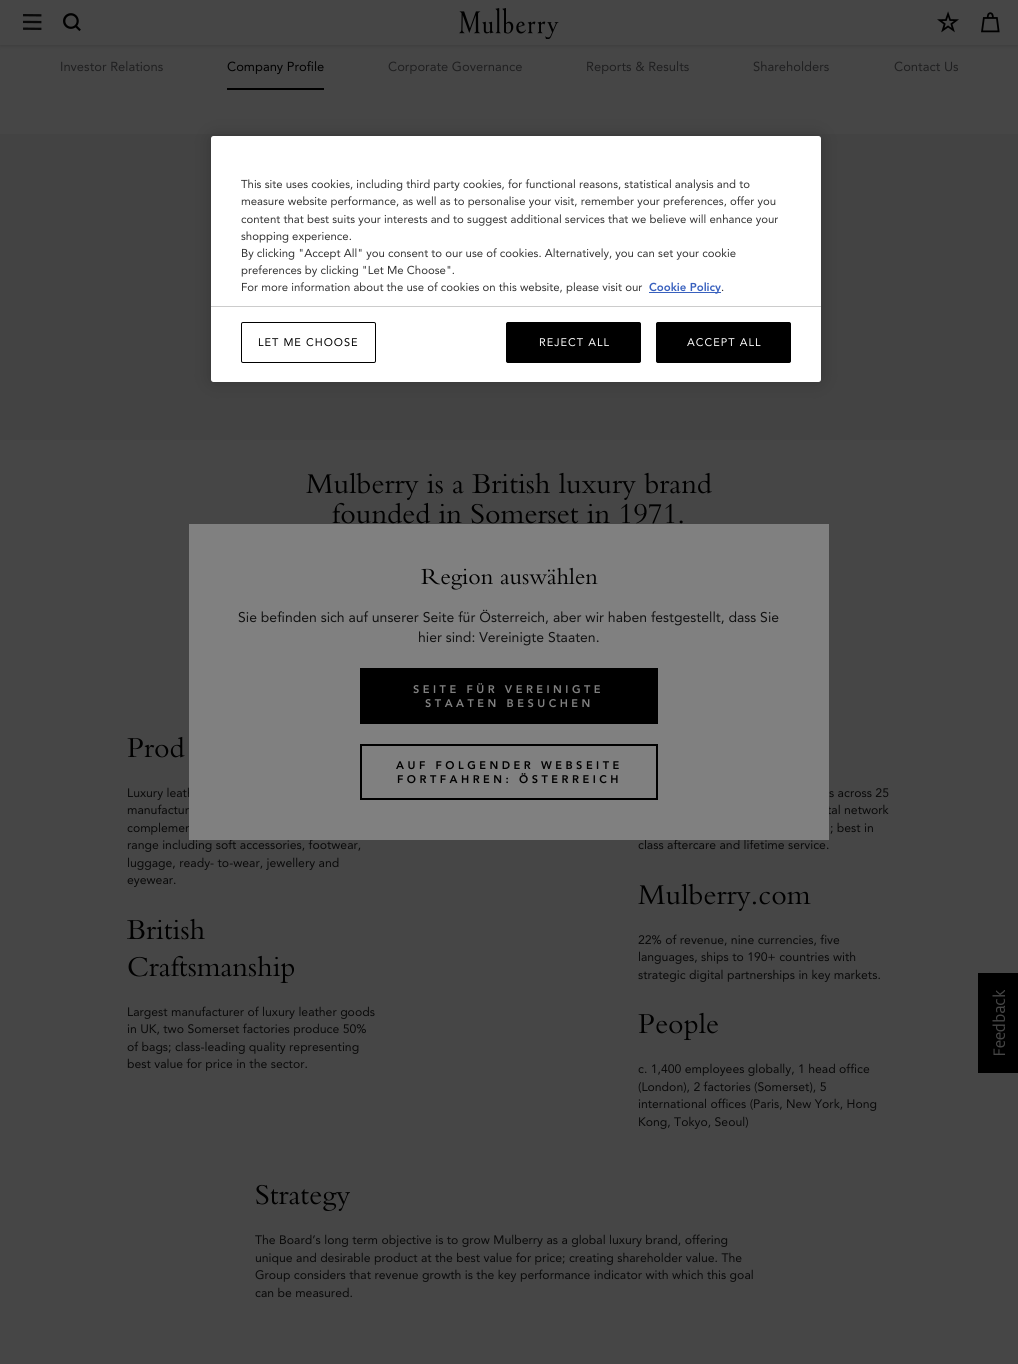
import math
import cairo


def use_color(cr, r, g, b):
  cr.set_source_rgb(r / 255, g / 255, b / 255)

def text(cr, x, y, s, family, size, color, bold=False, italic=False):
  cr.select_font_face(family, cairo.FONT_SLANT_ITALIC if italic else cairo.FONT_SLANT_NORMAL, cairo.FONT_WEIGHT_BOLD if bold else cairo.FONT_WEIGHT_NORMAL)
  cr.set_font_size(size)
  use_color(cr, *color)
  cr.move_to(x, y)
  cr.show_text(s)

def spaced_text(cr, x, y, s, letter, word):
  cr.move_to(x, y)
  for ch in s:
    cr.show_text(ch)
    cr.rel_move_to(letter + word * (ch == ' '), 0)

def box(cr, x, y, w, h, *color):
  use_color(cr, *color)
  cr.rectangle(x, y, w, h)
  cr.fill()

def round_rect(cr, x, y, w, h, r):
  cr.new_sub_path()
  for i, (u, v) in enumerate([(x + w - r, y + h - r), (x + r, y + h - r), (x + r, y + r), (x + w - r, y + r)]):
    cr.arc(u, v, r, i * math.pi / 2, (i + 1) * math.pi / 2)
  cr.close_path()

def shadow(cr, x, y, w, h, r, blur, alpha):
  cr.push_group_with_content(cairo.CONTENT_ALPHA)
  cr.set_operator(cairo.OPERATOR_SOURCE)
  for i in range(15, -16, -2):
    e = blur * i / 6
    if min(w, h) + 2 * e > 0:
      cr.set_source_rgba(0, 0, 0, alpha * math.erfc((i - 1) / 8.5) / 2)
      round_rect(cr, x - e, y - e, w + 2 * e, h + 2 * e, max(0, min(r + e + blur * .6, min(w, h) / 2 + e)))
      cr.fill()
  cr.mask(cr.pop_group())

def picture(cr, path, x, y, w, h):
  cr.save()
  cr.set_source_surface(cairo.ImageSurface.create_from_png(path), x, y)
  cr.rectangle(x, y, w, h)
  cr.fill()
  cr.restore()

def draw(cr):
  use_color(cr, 70, 70, 70)
  cr.paint()
  use_color(cr, 0, 0, 0)
  shadow(cr, 0, 0, 1018, 45, 0, 2.5, 0.2)
  box(cr, 0, 0, 1018, 45, 70, 70, 70)
  picture(cr, "img_01.png", 23, 14, 19, 16)
  picture(cr, "img_02.png", 63, 13, 18, 18)
  picture(cr, "img_03.png", 459, 8, 100, 31)
  picture(cr, "img_04.png", 937, 11, 22, 22)
  picture(cr, "img_05.png", 981, 12, 19, 21)
  box(cr, 227, 88, 97, 2, 0, 0, 0)
  box(cr, 0, 134, 1018, 306, 67, 67, 67)
  use_color(cr, 0, 0, 0)
  shadow(cr, 211, 136, 610, 246, 2.5, 9, 0.2)
  use_color(cr, 255, 255, 255)
  round_rect(cr, 211, 136, 610, 246, 2.5)
  cr.fill()
  box(cr, 649, 292, 72, 1, 56, 96, 190)
  box(cr, 211, 306, 610, 1, 204, 204, 204)
  round_rect(cr, 241.5, 322.5, 134, 40, 1.5)
  use_color(cr, 0, 0, 0)
  cr.set_line_width(1)
  cr.stroke()
  round_rect(cr, 506.5, 322.5, 134, 40, 1.5)
  cr.fill_preserve()
  cr.stroke()
  round_rect(cr, 656.5, 322.5, 134, 40, 1.5)
  cr.fill_preserve()
  cr.stroke()
  picture(cr, "img_06.png", 978, 973, 40, 100)
  text(cr, 60, 71, "Investor Relations", "Avenir", 13, (31, 31, 32))
  text(cr, 227, 71, "Company Profile", "Avenir", 13, (0, 0, 0))
  text(cr, 388, 71, "Corporate Governance", "Avenir", 13, (31, 31, 32))
  text(cr, 586, 71, "Reports & Results", "Avenir", 13, (31, 31, 32))
  text(cr, 753, 71, "Shareholders", "Avenir", 13, (31, 31, 32))
  text(cr, 894, 71, "Contact Us", "Avenir", 13, (31, 31, 32))
  text(cr, 306, 493, "Mulberry is a British luxury brand", "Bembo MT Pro", 30, (0, 0, 0))
  text(cr, 332, 523, "founded in Somerset in 1971.", "Bembo MT Pro", 30, (0, 0, 0))
  text(cr, 127, 757, "Prod", "Bembo MT Pro", 30, (0, 0, 0))
  text(cr, 127, 797, "Luxury leath", "Avenir", 12.25, (9, 9, 9))
  text(cr, 127, 814, "manufactur", "Avenir", 12.25, (9, 9, 9))
  text(cr, 127, 832, "complemen", "Avenir", 12.25, (9, 9, 9))
  text(cr, 127, 849, "range including soft accessories, footwear,", "Avenir", 12.25, (9, 9, 9))
  text(cr, 127, 867, "luggage, ready- to-wear, jewellery and", "Avenir", 12.25, (9, 9, 9))
  text(cr, 127, 884, "eyewear.", "Avenir", 12.25, (9, 9, 9))
  text(cr, 127, 939, "British", "Bembo MT Pro", 30, (0, 0, 0))
  text(cr, 127, 976, "Craftsmanship", "Bembo MT Pro", 30, (0, 0, 0))
  text(cr, 127, 1016, "Largest manufacturer of luxury leather goods", "Avenir", 12.25, (9, 9, 9))
  text(cr, 127, 1033, "in UK, two Somerset factories produce 50%", "Avenir", 12.25, (9, 9, 9))
  text(cr, 127, 1051, "of bags; class-leading quality representing", "Avenir", 12.25, (9, 9, 9))
  text(cr, 127, 1068, "best value for price in the sector.", "Avenir", 12.25, (9, 9, 9))
  text(cr, 829, 797, "s across 25", "Avenir", 12.25, (9, 9, 9))
  text(cr, 827, 814, "tal network", "Avenir", 12.25, (9, 9, 9))
  text(cr, 830, 832, "; best in", "Avenir", 12.25, (9, 9, 9))
  text(cr, 638, 849, "class aftercare and lifetime service.", "Avenir", 12.25, (9, 9, 9))
  text(cr, 638, 904, "Mulberry.com", "Bembo MT Pro", 30, (0, 0, 0))
  text(cr, 638, 944, "22% of revenue, nine currencies, five", "Avenir", 12.25, (9, 9, 9))
  text(cr, 638, 961, "languages, ships to 190+ countries with", "Avenir", 12.25, (9, 9, 9))
  text(cr, 638, 979, "strategic digital partnerships in key markets.", "Avenir", 12.25, (9, 9, 9))
  text(cr, 638, 1033, "People", "Bembo MT Pro", 30, (0, 0, 0))
  text(cr, 638, 1073, "c. 1,400 employees globally, 1 head office", "Avenir", 12.25, (9, 9, 9))
  text(cr, 638, 1091, "(London), 2 factories (Somerset), 5", "Avenir", 12.25, (9, 9, 9))
  text(cr, 638, 1108, "international offices (Paris, New York, Hong", "Avenir", 12.25, (9, 9, 9))
  text(cr, 638, 1126, "Kong, Tokyo, Seoul)", "Avenir", 12.25, (9, 9, 9))
  text(cr, 255, 1204, "Strategy", "Bembo MT Pro", 30, (0, 0, 0))
  text(cr, 255, 1244, "The Board’s long term objective is to grow Mulberry as a global luxury brand, offering", "Avenir", 12.25, (9, 9, 9))
  text(cr, 255, 1262, "unique and desirable product at the best value for price; creating shareholder value. The", "Avenir", 12.25, (9, 9, 9))
  text(cr, 255, 1279, "Group considers that revenue growth is the key performance indicator with which this goal", "Avenir", 12.25, (9, 9, 9))
  text(cr, 255, 1297, "can be measured.", "Avenir", 12.25, (9, 9, 9))
  text(cr, 241, 188, "This site uses cookies, including third party cookies, for functional reasons, statistical analysis and to", "Avenir", 11.4, (51, 51, 51))
  text(cr, 241, 205, "measure website performance, as well as to personalise your visit, remember your preferences, offer you", "Avenir", 11.4, (51, 51, 51))
  text(cr, 241, 223, "content that best suits your interests and to suggest additional services that we believe will enhance your", "Avenir", 11.4, (51, 51, 51))
  text(cr, 241, 240, "shopping experience.", "Avenir", 11.4, (51, 51, 51))
  text(cr, 241, 257, "By clicking \"Accept All\" you consent to our use of cookies. Alternatively, you can set your cookie", "Avenir", 11.4, (51, 51, 51))
  text(cr, 241, 274, "preferences by clicking \"Let Me Choose\".", "Avenir", 11.4, (51, 51, 51))
  text(cr, 241, 291, "For more information about the use of cookies on this website, please visit our", "Avenir", 11.4, (51, 51, 51))
  text(cr, 649, 291, "Cookie Policy", "Avenir Black", 11.4, (56, 96, 190))
  text(cr, 721, 291, ".", "Avenir", 11.4, (51, 51, 51))
  cr.set_font_size(11)
  use_color(cr, 0, 0, 0)
  spaced_text(cr, 258, 346, "LET ME CHOOSE", 1, 0)
  use_color(cr, 255, 255, 255)
  spaced_text(cr, 539, 346, "REJECT ALL", 1, 0)
  spaced_text(cr, 687, 346, "ACCEPT ALL", 1, 0)
  box(cr, 189, 524, 640, 316, 128, 128, 128)
  text(cr, 421, 584, "Region auswählen", "Bembo MT Pro", 24, (0, 0, 0))
  text(cr, 238, 622, "Sie befinden sich auf unserer Seite für Österreich, aber wir haben festgestellt, dass Sie", "Avenir", 14, (17, 17, 17))
  text(cr, 418, 642, "hier sind: Vereinigte Staaten.", "Avenir", 14, (17, 17, 17))
  box(cr, 360, 668, 298, 56, 0, 0, 0)
  cr.select_font_face("Avenir Black")
  cr.set_font_size(11)
  use_color(cr, 128, 128, 128)
  spaced_text(cr, 413, 693, "SEITE FÜR VEREINIGTE", 3.5, 0)
  spaced_text(cr, 425, 707, "STAATEN BESUCHEN", 3.5, 0)
  cr.rectangle(361, 745, 296, 54)
  use_color(cr, 0, 0, 0)
  cr.set_line_width(2)
  cr.stroke()
  spaced_text(cr, 396, 769, "AUF FOLGENDER WEBSEITE", 3.5, 0)
  spaced_text(cr, 397, 783, "FORTFAHREN: ÖSTERREICH", 3.5, 0)


surface = cairo.ImageSurface(cairo.FORMAT_RGB24, 1018, 1364)
cr = cairo.Context(surface)
options = cairo.FontOptions()
options.set_hint_metrics(cairo.HINT_METRICS_OFF)
options.set_hint_style(cairo.HINT_STYLE_NONE)
cr.set_font_options(options)
cr.set_miter_limit(4)
draw(cr)
surface.write_to_png("out.png")
